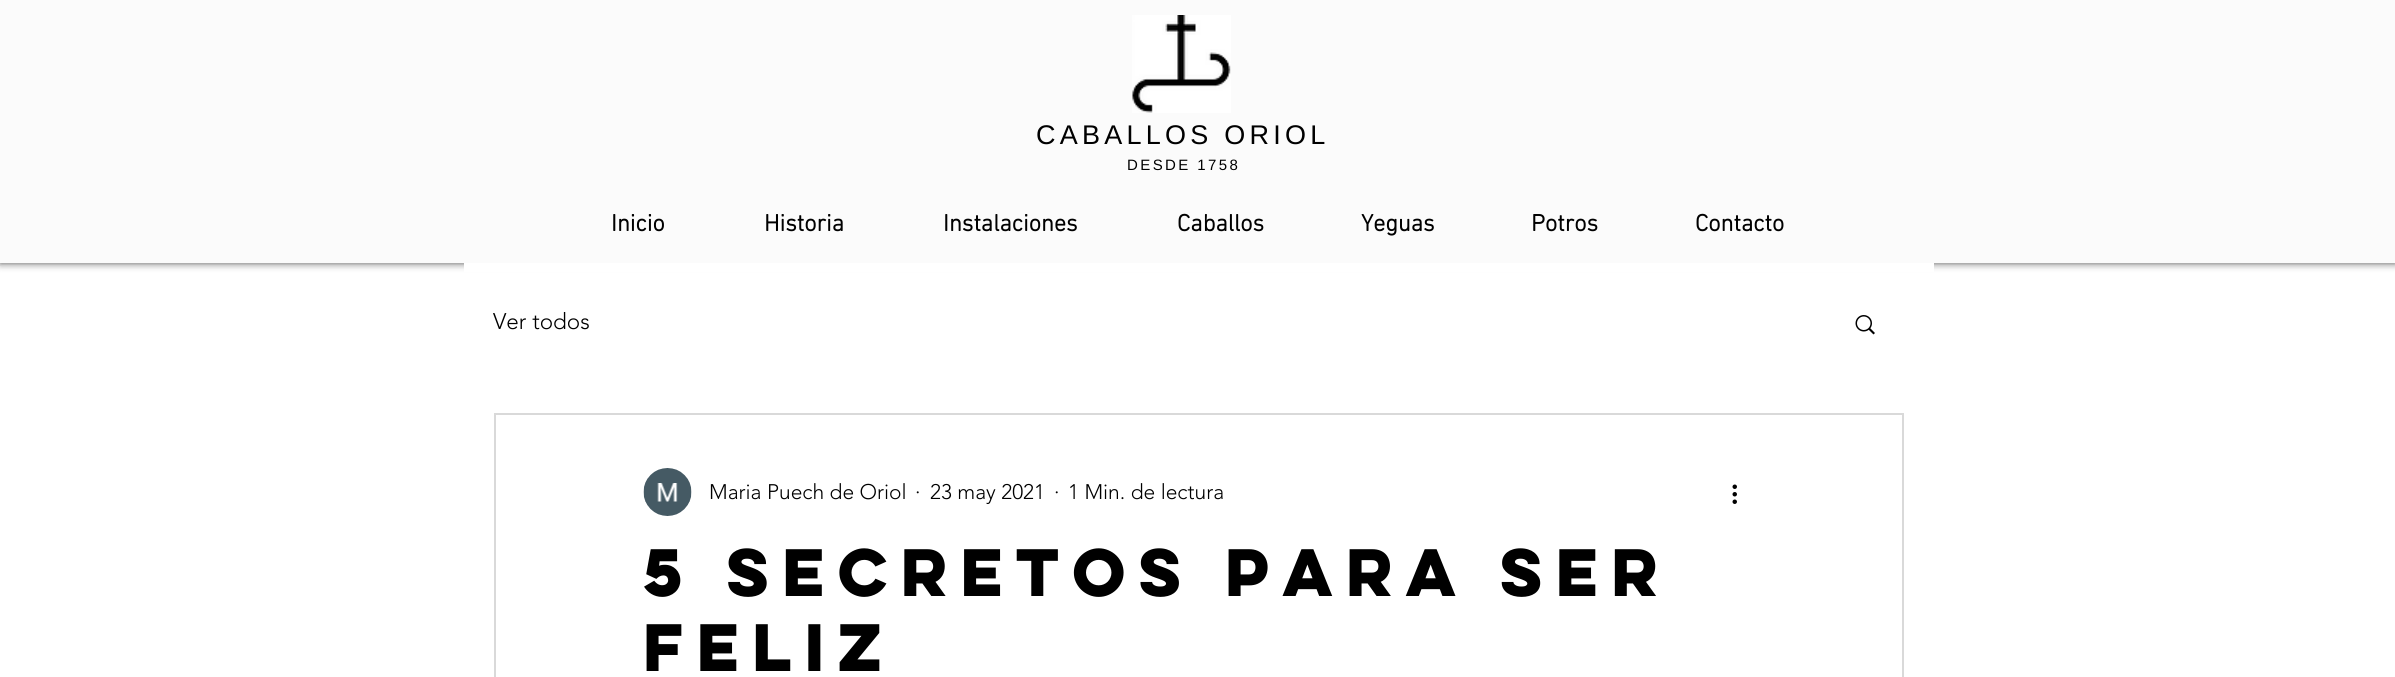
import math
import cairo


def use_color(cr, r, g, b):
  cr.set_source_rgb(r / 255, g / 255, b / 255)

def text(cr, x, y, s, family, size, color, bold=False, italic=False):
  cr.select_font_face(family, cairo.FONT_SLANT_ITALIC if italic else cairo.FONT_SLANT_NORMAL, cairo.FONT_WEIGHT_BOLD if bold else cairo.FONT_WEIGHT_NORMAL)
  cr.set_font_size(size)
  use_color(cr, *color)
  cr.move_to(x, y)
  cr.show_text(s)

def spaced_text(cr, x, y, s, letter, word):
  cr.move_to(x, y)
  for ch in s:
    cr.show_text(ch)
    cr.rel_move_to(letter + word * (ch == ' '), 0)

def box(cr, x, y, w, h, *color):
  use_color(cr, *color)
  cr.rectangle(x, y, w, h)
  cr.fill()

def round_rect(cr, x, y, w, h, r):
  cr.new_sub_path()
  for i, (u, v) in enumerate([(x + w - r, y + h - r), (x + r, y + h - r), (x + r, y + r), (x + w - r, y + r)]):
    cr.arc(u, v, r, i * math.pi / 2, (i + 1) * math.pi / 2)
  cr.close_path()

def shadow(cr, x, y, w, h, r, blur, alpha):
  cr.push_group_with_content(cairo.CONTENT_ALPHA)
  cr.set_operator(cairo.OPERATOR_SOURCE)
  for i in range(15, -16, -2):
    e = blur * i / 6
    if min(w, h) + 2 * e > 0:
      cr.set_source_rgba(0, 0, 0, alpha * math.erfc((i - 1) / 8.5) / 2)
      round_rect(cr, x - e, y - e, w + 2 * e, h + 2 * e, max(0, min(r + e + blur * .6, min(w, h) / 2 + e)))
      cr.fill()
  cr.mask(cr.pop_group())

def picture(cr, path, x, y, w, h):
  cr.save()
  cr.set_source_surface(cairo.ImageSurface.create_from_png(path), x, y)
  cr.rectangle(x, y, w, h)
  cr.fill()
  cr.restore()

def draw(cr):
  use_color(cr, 255, 255, 255)
  cr.paint()
  cr.save()
  cr.set_fill_rule(cairo.FILL_RULE_EVEN_ODD)
  cr.new_path()
  cr.move_to(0, 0)
  cr.line_to(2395, 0)
  cr.line_to(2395, 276)
  cr.line_to(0, 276)
  cr.close_path()
  cr.move_to(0, 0)
  cr.line_to(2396, 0)
  cr.line_to(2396, 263)
  cr.line_to(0, 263)
  cr.close_path()
  cr.clip()
  use_color(cr, 0, 0, 0)
  shadow(cr, 0, 0, 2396, 263, 0, 4, 0.7)
  cr.restore()
  cr.set_source_rgba(0.91, 0.91, 0.91, 0.15)
  cr.rectangle(0, 0, 2395, 263)
  cr.fill()
  picture(cr, "img_01.png", 1132, 15, 99, 98)
  box(cr, 464, 263, 1470, 9, 255, 255, 255)
  picture(cr, "img_02.png", 1855, 315, 20, 20)
  cr.rectangle(495, 414, 1408, 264)
  use_color(cr, 217, 217, 217)
  cr.stroke()
  picture(cr, "img_03.png", 643, 468, 49, 48)
  picture(cr, "img_04.png", 1732, 484, 5, 20)
  cr.select_font_face("Liberation Sans")
  cr.set_font_size(27)
  use_color(cr, 0, 0, 0)
  spaced_text(cr, 1036, 144, "CABALLOS ORIOL", 4.25, 0)
  cr.set_font_size(15)
  spaced_text(cr, 1127, 170, "DESDE 1758", 2.4, 0)
  text(cr, 611, 231, "Inicio", "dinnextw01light", 24, (0, 0, 0), bold=True)
  text(cr, 764, 231, "Historia", "dinnextw01light", 24, (0, 0, 0), bold=True)
  text(cr, 943, 231, "Instalaciones", "dinnextw01light", 24, (0, 0, 0), bold=True)
  text(cr, 1177, 231, "Caballos", "dinnextw01light", 24, (0, 0, 0), bold=True)
  text(cr, 1361, 231, "Yeguas", "dinnextw01light", 24, (0, 0, 0), bold=True)
  text(cr, 1531, 231, "Potros", "dinnextw01light", 24, (0, 0, 0), bold=True)
  text(cr, 1695, 231, "Contacto", "dinnextw01light", 24, (0, 0, 0), bold=True)
  text(cr, 493, 329, "Ver todos", "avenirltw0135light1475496 Light", 22.5, (0, 0, 0))
  text(cr, 709, 499, "Maria Puech de Oriol", "avenirltw0135light1475496 Light", 21, (0, 0, 0))
  text(cr, 915, 499, "·", "avenirltw0135light1475496 Light", 21, (0, 0, 0))
  text(cr, 930, 499, "23 may 2021", "avenirltw0135light1475496 Light", 21, (0, 0, 0))
  text(cr, 1054, 499, "·", "avenirltw0135light1475496 Light", 21, (0, 0, 0))
  text(cr, 1068, 499, "1 Min. de lectura", "avenirltw0135light1475496 Light", 21, (0, 0, 0))
  text(cr, 643, 596, "5 secretos para ser", "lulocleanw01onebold", 60, (0, 0, 0), bold=True)
  text(cr, 643, 671, "feliz", "lulocleanw01onebold", 60, (0, 0, 0), bold=True)


surface = cairo.ImageSurface(cairo.FORMAT_RGB24, 2395, 677)
cr = cairo.Context(surface)
options = cairo.FontOptions()
options.set_hint_metrics(cairo.HINT_METRICS_OFF)
options.set_hint_style(cairo.HINT_STYLE_NONE)
cr.set_font_options(options)
cr.set_miter_limit(4)
draw(cr)
surface.write_to_png("out.png")
